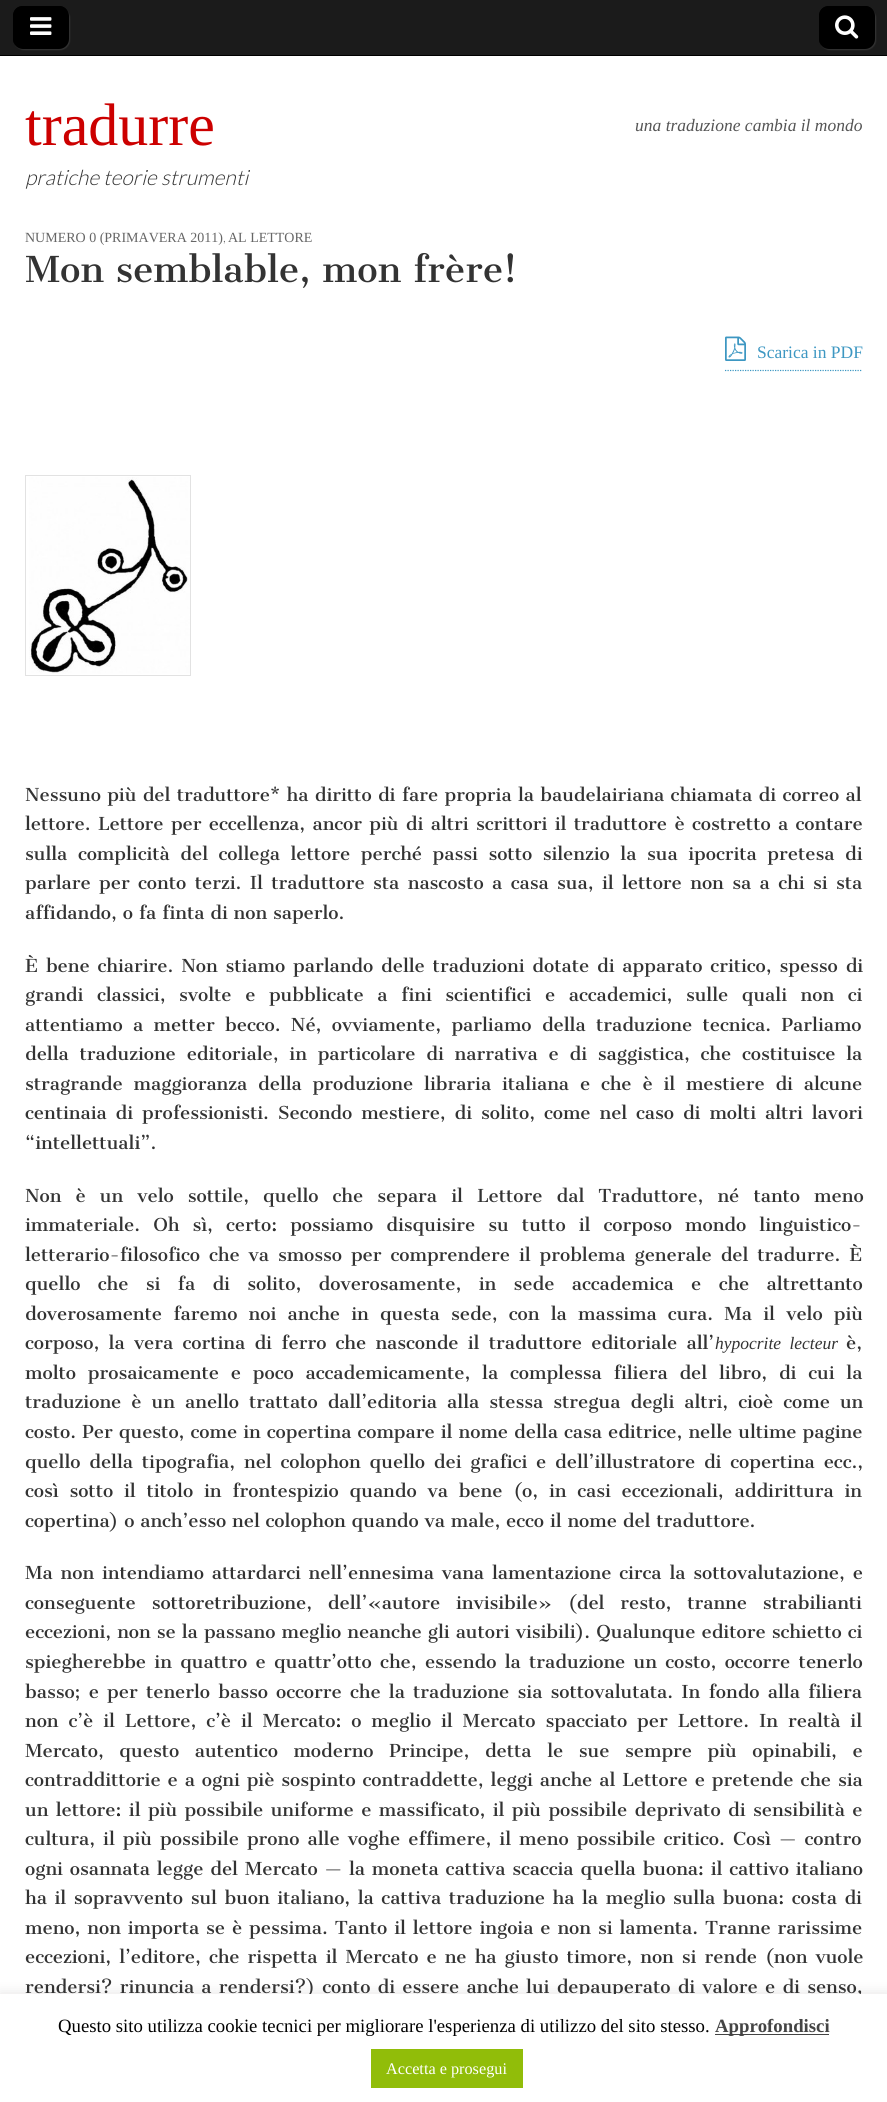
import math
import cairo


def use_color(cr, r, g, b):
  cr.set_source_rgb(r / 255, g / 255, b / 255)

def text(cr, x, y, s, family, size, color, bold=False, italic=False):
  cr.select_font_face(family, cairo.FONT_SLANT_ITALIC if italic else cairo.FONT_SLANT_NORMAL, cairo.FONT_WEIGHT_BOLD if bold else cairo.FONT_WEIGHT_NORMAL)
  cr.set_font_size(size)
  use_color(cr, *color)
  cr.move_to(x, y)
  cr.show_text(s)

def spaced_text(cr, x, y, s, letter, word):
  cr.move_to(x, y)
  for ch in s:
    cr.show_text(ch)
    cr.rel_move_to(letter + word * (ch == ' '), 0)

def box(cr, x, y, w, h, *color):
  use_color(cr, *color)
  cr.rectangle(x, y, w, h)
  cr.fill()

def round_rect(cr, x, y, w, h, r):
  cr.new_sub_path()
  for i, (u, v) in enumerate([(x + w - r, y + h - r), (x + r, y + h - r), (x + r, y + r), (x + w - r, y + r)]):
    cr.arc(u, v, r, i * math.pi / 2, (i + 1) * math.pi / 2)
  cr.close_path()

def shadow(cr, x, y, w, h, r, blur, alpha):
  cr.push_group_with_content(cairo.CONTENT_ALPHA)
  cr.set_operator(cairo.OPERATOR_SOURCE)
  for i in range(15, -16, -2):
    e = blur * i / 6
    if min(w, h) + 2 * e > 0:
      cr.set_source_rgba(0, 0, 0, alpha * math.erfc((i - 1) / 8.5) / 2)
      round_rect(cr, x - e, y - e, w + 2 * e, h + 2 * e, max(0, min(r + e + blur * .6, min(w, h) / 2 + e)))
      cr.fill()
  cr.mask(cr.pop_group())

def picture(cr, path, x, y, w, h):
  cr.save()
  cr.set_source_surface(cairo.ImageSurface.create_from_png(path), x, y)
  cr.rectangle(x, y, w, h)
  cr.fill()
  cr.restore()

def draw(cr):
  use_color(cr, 255, 255, 255)
  cr.paint()
  box(cr, 0, 0, 887, 55, 27, 27, 27)
  box(cr, 0, 55, 887, 1, 0, 0, 0)
  use_color(cr, 51, 51, 51)
  shadow(cr, 14, 8, 56, 42, 10, 0.5, 1)
  use_color(cr, 0, 0, 0)
  round_rect(cr, 13, 6, 56, 43, 10)
  cr.fill()
  cr.new_path()
  cr.move_to(24, 8)
  cr.line_to(60, 8)
  cr.curve_to(63, 8, 66, 9, 68, 12)
  cr.curve_to(66, 8, 63, 6, 59, 6)
  cr.line_to(23, 6)
  cr.curve_to(17, 6, 13, 10, 13, 16)
  cr.line_to(13, 39)
  cr.curve_to(13, 41, 14, 44, 15, 45)
  cr.curve_to(13, 41, 14, 34, 14, 29)
  cr.curve_to(14, 21, 12, 8, 24, 8)
  cr.close_path()
  cr.fill()
  picture(cr, "img_01.png", 30, 17, 22, 18)
  use_color(cr, 51, 51, 51)
  shadow(cr, 820, 8, 56, 42, 10, 0.5, 1)
  use_color(cr, 0, 0, 0)
  round_rect(cr, 819, 6, 56, 43, 10)
  cr.fill()
  cr.new_path()
  cr.move_to(830, 8)
  cr.line_to(866, 8)
  cr.curve_to(869, 8, 872, 9, 874, 12)
  cr.curve_to(872, 8, 869, 6, 865, 6)
  cr.line_to(829, 6)
  cr.curve_to(823, 6, 819, 10, 819, 16)
  cr.line_to(819, 39)
  cr.curve_to(819, 41, 820, 44, 821, 45)
  cr.curve_to(819, 41, 820, 34, 820, 29)
  cr.curve_to(820, 21, 818, 8, 830, 8)
  cr.close_path()
  cr.fill()
  picture(cr, "img_02.png", 835, 15, 24, 24)
  cr.new_path()
  cr.move_to(725, 370.5)
  cr.line_to(862.5, 370.5)
  use_color(cr, 61, 151, 194)
  cr.set_line_width(1.2)
  cr.set_dash([1.25, 1.25])
  cr.stroke()
  picture(cr, "img_03.png", 725, 336, 21, 25)
  cr.rectangle(25.5, 475.5, 165, 200)
  use_color(cr, 226, 226, 226)
  cr.set_line_width(1)
  cr.set_dash([])
  cr.stroke()
  picture(cr, "img_04.png", 29, 477, 161, 197)
  use_color(cr, 172, 171, 171)
  shadow(cr, 0, 1993, 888, 108, 0, 6, 0.3)
  text(cr, 25, 145, "tradurre", "Liberation Serif", 60, (204, 0, 0))
  text(cr, 25, 185, "pratiche teorie strumenti", "Lato Light", 21, (51, 51, 51), italic=True)
  text(cr, 635, 131, "una traduzione cambia il mondo", "Liberation Serif", 17.5, (85, 85, 85), italic=True)
  text(cr, 25, 242, "NUMERO 0 (PRIMAVERA 2011)", "Liberation Serif", 14, (102, 102, 102))
  text(cr, 223, 242, ",", "Lato Light", 14, (102, 102, 102))
  text(cr, 228, 242, "AL LETTORE", "Liberation Serif", 14, (102, 102, 102))
  text(cr, 25, 282, "Mon semblable, mon frère!", "Cantata One", 35, (51, 51, 51))
  text(cr, 757, 358, "Scarica in PDF", "Liberation Serif", 17.5, (61, 151, 194))
  cr.select_font_face("Cantata One")
  use_color(cr, 51, 51, 51)
  spaced_text(cr, 25, 801, "Nessuno più del traduttore* ha diritto di fare propria la baudelairiana chiamata di correo al", 0, 0.5)
  spaced_text(cr, 25, 830, "lettore. Lettore per eccellenza, ancor più di altri scrittori il traduttore è costretto a contare", 0, 1.5)
  spaced_text(cr, 25, 860, "sulla complicità del collega lettore perché passi sotto silenzio la sua ipocrita pretesa di", 0, 4.75)
  spaced_text(cr, 25, 889, "parlare per conto terzi. Il traduttore sta nascosto a casa sua, il lettore non sa a chi si sta", 0, 2.6)
  text(cr, 25, 919, "affidando, o fa finta di non saperlo.", "Cantata One", 17.5, (51, 51, 51))
  spaced_text(cr, 25, 972, "È bene chiarire. Non stiamo parlando delle traduzioni dotate di apparato critico, spesso di", 0, 2)
  spaced_text(cr, 25, 1001, "grandi classici, svolte e pubblicate a fini scientifici e accademici, sulle quali non ci", 0, 7.75)
  spaced_text(cr, 25, 1031, "attentiamo a metter becco. Né, ovviamente, parliamo della traduzione tecnica. Parliamo", 0, 4.5)
  spaced_text(cr, 25, 1060, "della traduzione editoriale, in particolare di narrativa e di saggistica, che costituisce la", 0, 5)
  spaced_text(cr, 25, 1090, "stragrande maggioranza della produzione libraria italiana e che è il mestiere di alcune", 0, 5)
  spaced_text(cr, 25, 1119, "centinaia di professionisti. Secondo mestiere, di solito, come nel caso di molti altri lavori", 0, 3.1)
  text(cr, 25, 1149, "“intellettuali”.", "Cantata One", 17.5, (51, 51, 51))
  spaced_text(cr, 25, 1202, "Non è un velo sottile, quello che separa il Lettore dal Traduttore, né tanto meno", 0, 8.25)
  spaced_text(cr, 25, 1231, "immateriale. Oh sì, certo: possiamo disquisire su tutto il corposo mondo linguistico-", 0, 7.25)
  spaced_text(cr, 25, 1261, "letterario-filosofico che va smosso per comprendere il problema generale del tradurre. È", 0, 3.1)
  spaced_text(cr, 25, 1290, "quello che si fa di solito, doverosamente, in sede accademica e che altrettanto", 0, 11.5)
  spaced_text(cr, 25, 1320, "doverosamente faremo noi anche in questa sede, con la massima cura. Ma il velo più", 0, 5.4)
  spaced_text(cr, 25, 1349, "corposo, la vera cortina di ferro che nasconde il traduttore editoriale all’", 0, 3.4)
  cr.select_font_face("Liberation Serif", cairo.FONT_SLANT_ITALIC)
  spaced_text(cr, 715, 1349, "hypocrite lecteur", 0, 4)
  text(cr, 846, 1349, "è,", "Cantata One", 17.5, (51, 51, 51))
  spaced_text(cr, 25, 1379, "molto prosaicamente e poco accademicamente, la complessa filiera del libro, di cui la", 0, 6)
  spaced_text(cr, 25, 1408, "traduzione è un anello trattato dall’editoria alla stessa stregua degli altri, cioè come un", 0, 4.25)
  spaced_text(cr, 25, 1438, "costo. Per questo, come in copertina compare il nome della casa editrice, nelle ultime pagine", 0, 0.25)
  spaced_text(cr, 25, 1468, "quello della tipografia, nel colophon quello dei grafici e dell’illustratore di copertina ecc.,", 0, 3)
  spaced_text(cr, 25, 1497, "così sotto il titolo in frontespizio quando va bene (o, in casi eccezionali, addirittura in", 0, 5)
  text(cr, 25, 1527, "copertina) o anch’esso nel colophon quando va male, ecco il nome del traduttore.", "Cantata One", 17.5, (51, 51, 51))
  spaced_text(cr, 25, 1579, "Ma non intendiamo attardarci nell’ennesima vana lamentazione circa la sottovalutazione, e", 0, 2)
  spaced_text(cr, 25, 1609, "conseguente sottoretribuzione, dell’«autore invisibile» (del resto, tranne strabilianti", 0, 10)
  spaced_text(cr, 25, 1638, "eccezioni, non se la passano meglio neanche gli autori visibili). Qualunque editore schietto ci", 0, 0.25)
  spaced_text(cr, 25, 1668, "spiegherebbe in quattro e quattr’otto che, essendo la traduzione un costo, occorre tenerlo", 0, 2.5)
  spaced_text(cr, 25, 1698, "basso; e per tenerlo basso occorre che la traduzione sia sottovalutata. In fondo alla filiera", 0, 2.4)
  spaced_text(cr, 25, 1727, "non c’è il Lettore, c’è il Mercato: o meglio il Mercato spacciato per Lettore. In realtà il", 0, 4.1)
  spaced_text(cr, 25, 1757, "Mercato, questo autentico moderno Principe, detta le sue sempre più opinabili, e", 0, 9.75)
  spaced_text(cr, 25, 1786, "contraddittorie e a ogni piè sospinto contraddette, leggi anche al Lettore e pretende che sia", 0, 1.1)
  spaced_text(cr, 25, 1816, "un lettore: il più possibile uniforme e massificato, il più possibile deprivato di sensibilità e", 0, 1.6)
  spaced_text(cr, 25, 1845, "cultura, il più possibile prono alle voghe effimere, il meno possibile critico. Così — contro", 0, 2.25)
  spaced_text(cr, 25, 1875, "ogni osannata legge del Mercato — la moneta cattiva scaccia quella buona: il cattivo italiano", 0, 1)
  spaced_text(cr, 25, 1904, "ha il sopravvento sul buon italiano, la cattiva traduzione ha la meglio sulla buona: costa di", 0, 1.75)
  spaced_text(cr, 25, 1934, "meno, non importa se è pessima. Tanto il lettore ingoia e non si lamenta. Tranne rarissime", 0, 1.1)
  spaced_text(cr, 25, 1963, "eccezioni, l’editore, che rispetta il Mercato e ne ha giusto timore, non si rende (non vuole", 0, 2.25)
  spaced_text(cr, 25, 1993, "rendersi? rinuncia a rendersi?) conto di essere anche lui depauperato di valore e di senso,", 0, 1.4)
  box(cr, 0, 1994, 887, 108, 255, 255, 255)
  text(cr, 58, 2032, "Questo sito utilizza cookie tecnici per migliorare l'esperienza di utilizzo del sito stesso.", "Liberation Serif", 18.75, (0, 0, 0))
  box(cr, 715, 2034, 114, 1, 68, 68, 68)
  text(cr, 715, 2032, "Approfondisci", "Liberation Serif", 18.75, (68, 68, 68), bold=True)
  box(cr, 371, 2049, 152, 39, 145, 189, 9)
  text(cr, 386, 2074, "Accetta e prosegui", "Liberation Serif", 16.25, (255, 255, 255))


surface = cairo.ImageSurface(cairo.FORMAT_RGB24, 887, 2102)
cr = cairo.Context(surface)
options = cairo.FontOptions()
options.set_hint_metrics(cairo.HINT_METRICS_OFF)
options.set_hint_style(cairo.HINT_STYLE_NONE)
cr.set_font_options(options)
cr.set_miter_limit(4)
draw(cr)
surface.write_to_png("out.png")
